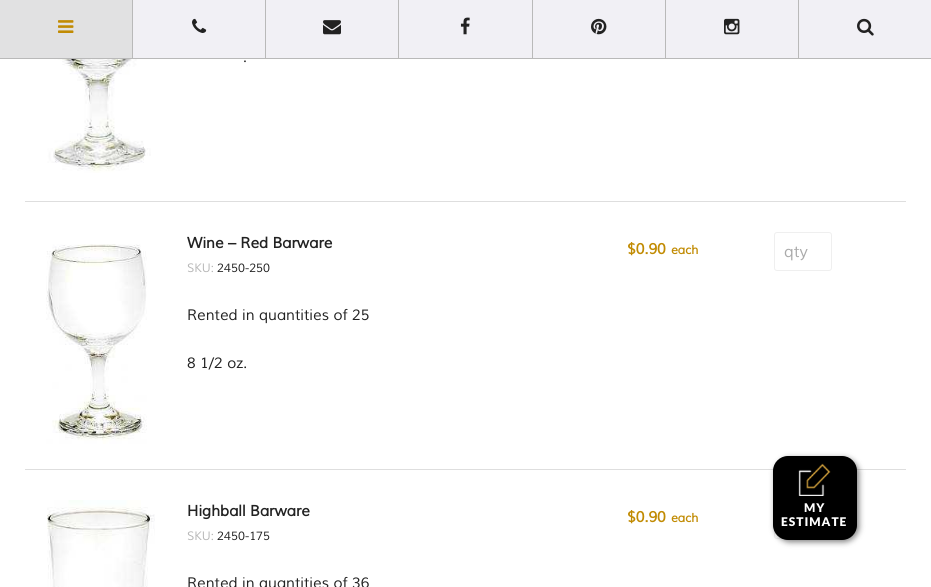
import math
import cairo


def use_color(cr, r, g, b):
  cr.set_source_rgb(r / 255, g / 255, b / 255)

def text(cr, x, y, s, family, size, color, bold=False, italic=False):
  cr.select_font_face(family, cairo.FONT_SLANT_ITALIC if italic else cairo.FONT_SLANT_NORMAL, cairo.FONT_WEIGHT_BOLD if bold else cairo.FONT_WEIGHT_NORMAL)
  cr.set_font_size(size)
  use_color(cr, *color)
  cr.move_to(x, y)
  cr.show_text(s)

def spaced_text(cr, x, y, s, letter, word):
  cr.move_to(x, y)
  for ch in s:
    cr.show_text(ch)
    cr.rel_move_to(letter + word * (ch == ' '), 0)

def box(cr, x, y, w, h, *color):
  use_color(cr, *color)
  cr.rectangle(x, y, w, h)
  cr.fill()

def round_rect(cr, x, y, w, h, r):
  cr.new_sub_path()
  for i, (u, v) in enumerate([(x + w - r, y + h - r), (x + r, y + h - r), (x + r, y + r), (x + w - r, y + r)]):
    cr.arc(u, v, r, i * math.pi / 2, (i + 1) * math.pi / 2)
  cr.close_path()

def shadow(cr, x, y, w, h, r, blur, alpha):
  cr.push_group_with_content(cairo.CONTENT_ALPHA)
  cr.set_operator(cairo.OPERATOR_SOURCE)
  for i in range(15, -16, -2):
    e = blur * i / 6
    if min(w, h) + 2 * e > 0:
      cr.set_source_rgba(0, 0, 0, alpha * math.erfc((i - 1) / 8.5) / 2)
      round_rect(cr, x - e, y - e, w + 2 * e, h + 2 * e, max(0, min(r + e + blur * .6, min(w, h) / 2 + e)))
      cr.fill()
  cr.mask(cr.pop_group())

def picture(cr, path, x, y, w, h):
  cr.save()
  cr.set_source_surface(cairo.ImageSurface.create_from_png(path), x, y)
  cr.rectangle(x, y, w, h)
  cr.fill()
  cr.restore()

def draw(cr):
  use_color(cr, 255, 255, 255)
  cr.paint()
  box(cr, 0, 58, 931, 1, 185, 185, 185)
  box(cr, 0, 0, 132, 58, 225, 225, 226)
  box(cr, 132, 0, 1, 58, 185, 185, 185)
  picture(cr, "img_01.png", 58, 20, 16, 13)
  box(cr, 133, 0, 132, 58, 241, 240, 245)
  box(cr, 265, 0, 1, 58, 185, 185, 185)
  picture(cr, "img_02.png", 192, 18, 15, 15)
  box(cr, 266, 0, 132, 58, 241, 240, 245)
  box(cr, 398, 0, 1, 58, 185, 185, 185)
  picture(cr, "img_03.png", 323, 20, 18, 15)
  box(cr, 399, 0, 133, 58, 241, 240, 245)
  box(cr, 532, 0, 1, 58, 185, 185, 185)
  picture(cr, "img_04.png", 460, 17, 10, 18)
  box(cr, 533, 0, 132, 58, 241, 240, 245)
  box(cr, 665, 0, 1, 58, 185, 185, 185)
  picture(cr, "img_05.png", 591, 18, 16, 17)
  box(cr, 666, 0, 132, 58, 241, 240, 245)
  box(cr, 798, 0, 1, 58, 185, 185, 185)
  picture(cr, "img_06.png", 724, 18, 16, 17)
  box(cr, 799, 0, 132, 58, 241, 240, 245)
  picture(cr, "img_07.png", 857, 18, 17, 18)
  box(cr, 25, 201, 881, 1, 222, 222, 222)
  picture(cr, "img_08.png", 47, 59, 104, 114)
  box(cr, 25, 469, 881, 1, 222, 222, 222)
  picture(cr, "img_09.png", 46, 244, 101, 200)
  round_rect(cr, 774.5, 232.5, 57, 38, 2.5)
  use_color(cr, 239, 239, 239)
  cr.set_line_width(1)
  cr.stroke()
  picture(cr, "img_10.png", 47, 500, 108, 87)
  round_rect(cr, 774.5, 500.5, 57, 38, 2.5)
  cr.stroke()
  use_color(cr, 0, 0, 0)
  shadow(cr, 775, 458, 84, 84, 15, 3, 0.5)
  use_color(cr, 0, 0, 0)
  round_rect(cr, 773, 456, 84, 84, 15)
  cr.fill()
  picture(cr, "img_11.png", 798, 463, 33, 33)
  text(cr, 243, 62, ".", "Muli", 15, (34, 34, 34), italic=True)
  text(cr, 187, 248, "Wine – Red Barware", "Muli", 15, (34, 34, 34), bold=True, italic=True)
  text(cr, 187, 272, "SKU:", "Muli", 12, (182, 182, 182), italic=True)
  text(cr, 217, 272, "2450-250", "Muli", 12, (34, 34, 34), italic=True)
  text(cr, 187, 320, "Rented in quantities of 25", "Muli", 15, (34, 34, 34), italic=True)
  text(cr, 187, 368, "8 1/2 oz.", "Muli", 15, (34, 34, 34), italic=True)
  text(cr, 627, 254, "$0.90", "Muli", 15, (193, 139, 3), bold=True, italic=True)
  text(cr, 671, 254, "each", "Muli", 12, (193, 139, 3), bold=True, italic=True)
  text(cr, 784, 257, "qty", "Muli", 16, (170, 170, 170), italic=True)
  text(cr, 187, 516, "Highball Barware", "Muli", 15, (34, 34, 34), bold=True, italic=True)
  text(cr, 187, 540, "SKU:", "Muli", 12, (182, 182, 182), italic=True)
  text(cr, 217, 540, "2450-175", "Muli", 12, (34, 34, 34), italic=True)
  text(cr, 187, 588, "Rented in quantities of 36", "Muli", 15, (34, 34, 34), italic=True)
  text(cr, 627, 522, "$0.90", "Muli", 15, (193, 139, 3), bold=True, italic=True)
  text(cr, 671, 522, "each", "Muli", 12, (193, 139, 3), bold=True, italic=True)
  cr.select_font_face("Lato Black")
  use_color(cr, 255, 255, 255)
  spaced_text(cr, 804, 512, "MY", 1, 0)
  spaced_text(cr, 781, 526, "ESTIMATE", 1, 0)


surface = cairo.ImageSurface(cairo.FORMAT_RGB24, 931, 587)
cr = cairo.Context(surface)
options = cairo.FontOptions()
options.set_hint_metrics(cairo.HINT_METRICS_OFF)
options.set_hint_style(cairo.HINT_STYLE_NONE)
cr.set_font_options(options)
cr.set_miter_limit(4)
draw(cr)
surface.write_to_png("out.png")
